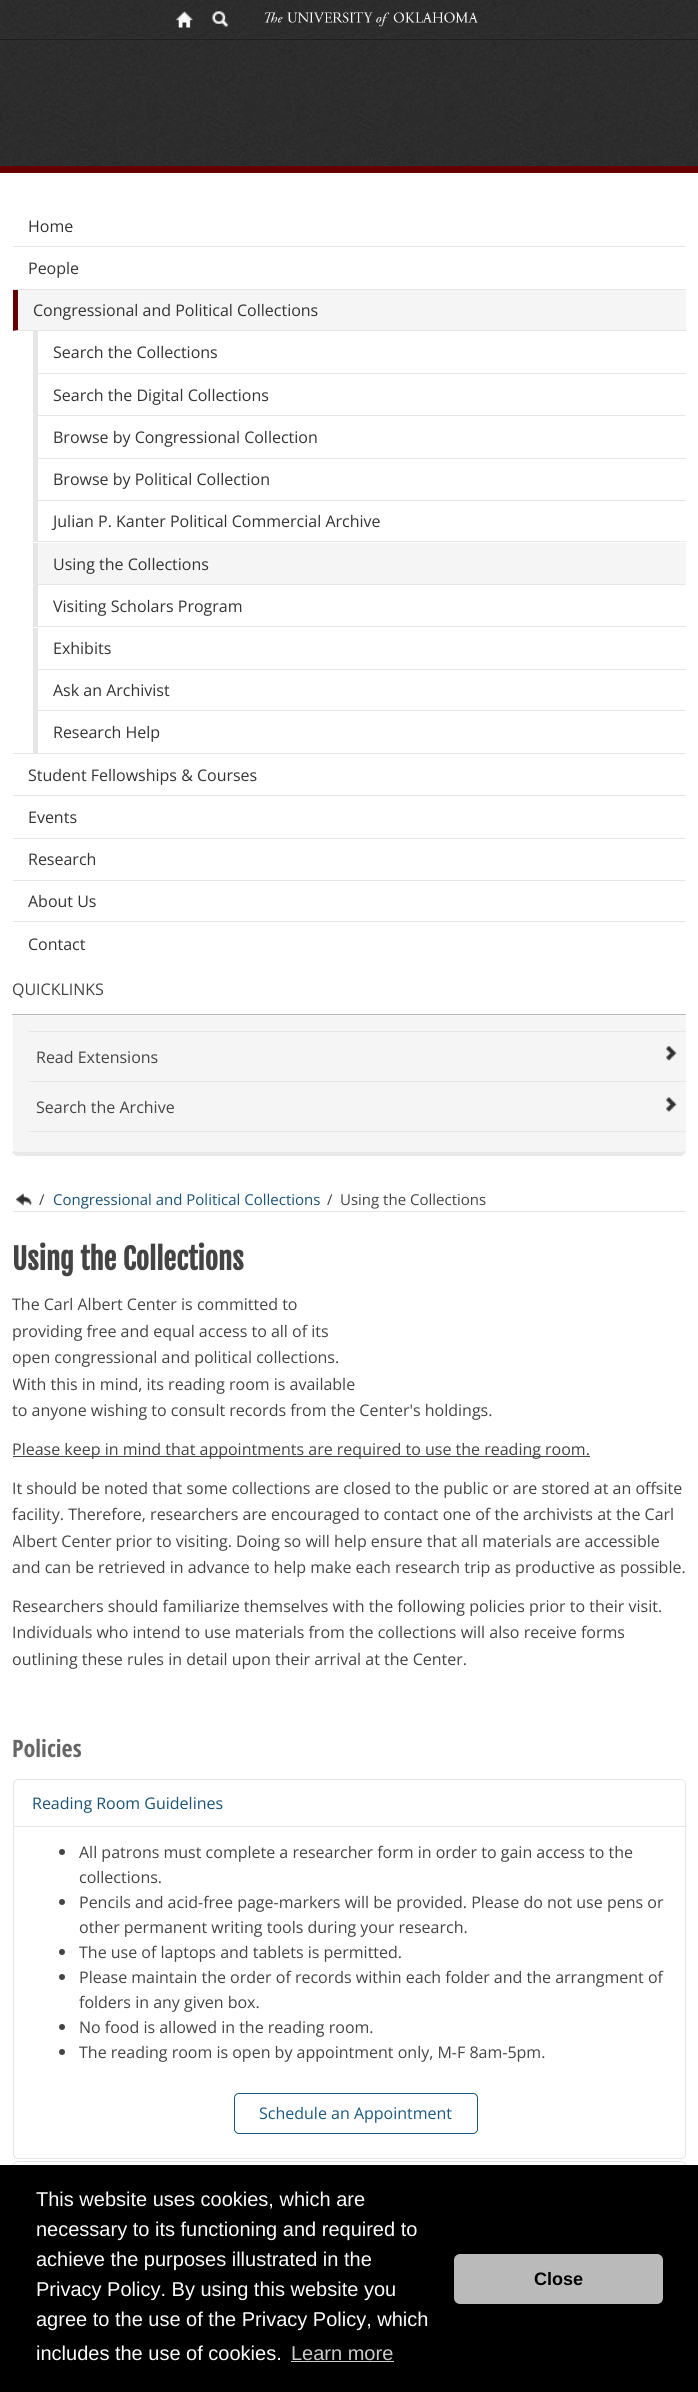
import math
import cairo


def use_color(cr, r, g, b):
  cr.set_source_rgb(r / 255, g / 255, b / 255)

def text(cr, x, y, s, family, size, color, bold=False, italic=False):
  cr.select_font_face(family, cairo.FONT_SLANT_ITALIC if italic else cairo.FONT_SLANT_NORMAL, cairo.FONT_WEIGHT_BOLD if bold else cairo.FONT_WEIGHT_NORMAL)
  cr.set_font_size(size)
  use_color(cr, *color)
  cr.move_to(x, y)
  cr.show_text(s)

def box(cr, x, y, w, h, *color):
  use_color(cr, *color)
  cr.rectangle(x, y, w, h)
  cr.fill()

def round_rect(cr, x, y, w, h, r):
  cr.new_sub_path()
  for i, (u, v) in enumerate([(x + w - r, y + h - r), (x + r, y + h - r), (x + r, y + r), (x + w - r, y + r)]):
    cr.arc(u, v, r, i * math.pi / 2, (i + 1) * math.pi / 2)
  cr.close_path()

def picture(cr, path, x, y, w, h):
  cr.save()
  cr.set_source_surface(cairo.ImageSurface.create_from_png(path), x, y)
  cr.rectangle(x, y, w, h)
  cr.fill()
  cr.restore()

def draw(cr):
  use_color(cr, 255, 255, 255)
  cr.paint()
  picture(cr, "img_01.png", 0, 0, 698, 38)
  picture(cr, "img_02.png", 176, 11, 17, 17)
  picture(cr, "img_03.png", 212, 11, 17, 17)
  picture(cr, "img_04.png", 264, 12, 214, 15)
  box(cr, 0, 39, 698, 1, 30, 30, 30)
  box(cr, 0, 38, 698, 1, 48, 48, 48)
  picture(cr, "img_05.png", 0, 40, 698, 126)
  box(cr, 0, 166, 698, 7, 102, 0, 0)
  box(cr, 13, 246, 673, 1, 230, 230, 230)
  box(cr, 13, 289, 673, 1, 230, 230, 230)
  box(cr, 13, 753, 673, 1, 230, 230, 230)
  box(cr, 13, 290, 673, 41, 245, 245, 245)
  use_color(cr, 230, 230, 230)
  cr.new_path()
  cr.move_to(686, 331)
  cr.line_to(12, 331)
  cr.line_to(18, 330)
  cr.line_to(686, 330)
  cr.close_path()
  cr.fill()
  cr.save()
  cr.rectangle(13, 205, 673, 759)
  cr.clip()
  use_color(cr, 102, 0, 0)
  cr.new_path()
  cr.move_to(12, 331)
  cr.line_to(12, 290)
  cr.line_to(18, 290)
  cr.line_to(18, 330)
  cr.close_path()
  cr.fill()
  cr.restore()
  box(cr, 33, 373, 653, 1, 230, 230, 230)
  box(cr, 33, 331, 5, 42, 230, 230, 230)
  box(cr, 33, 415, 653, 1, 230, 230, 230)
  box(cr, 33, 374, 5, 41, 230, 230, 230)
  box(cr, 33, 458, 653, 1, 230, 230, 230)
  box(cr, 33, 416, 5, 42, 230, 230, 230)
  box(cr, 33, 500, 653, 1, 230, 230, 230)
  box(cr, 33, 459, 5, 41, 230, 230, 230)
  box(cr, 33, 541, 653, 1, 230, 230, 230)
  box(cr, 33, 501, 5, 40, 230, 230, 230)
  box(cr, 33, 584, 653, 1, 230, 230, 230)
  box(cr, 38, 543, 648, 41, 245, 245, 245)
  box(cr, 33, 543, 5, 41, 230, 230, 230)
  box(cr, 33, 626, 653, 1, 230, 230, 230)
  box(cr, 33, 585, 5, 41, 230, 230, 230)
  box(cr, 33, 669, 653, 1, 230, 230, 230)
  box(cr, 33, 628, 5, 41, 230, 230, 230)
  box(cr, 33, 710, 653, 1, 230, 230, 230)
  box(cr, 33, 670, 5, 40, 230, 230, 230)
  box(cr, 33, 711, 5, 42, 230, 230, 230)
  box(cr, 13, 795, 673, 1, 230, 230, 230)
  box(cr, 13, 838, 673, 1, 230, 230, 230)
  box(cr, 13, 880, 673, 1, 230, 230, 230)
  box(cr, 13, 921, 673, 1, 230, 230, 230)
  use_color(cr, 245, 245, 245)
  cr.new_path()
  cr.move_to(13, 1014)
  cr.line_to(686, 1014)
  cr.line_to(686, 1150)
  cr.curve_to(686, 1153.5, 683.5, 1156, 680, 1156)
  cr.line_to(19, 1156)
  cr.curve_to(15.5, 1156, 13, 1153.5, 13, 1150)
  cr.close_path()
  cr.fill()
  box(cr, 12, 1014, 674, 1, 184, 184, 184)
  use_color(cr, 232, 232, 232)
  cr.new_path()
  cr.move_to(680, 1156)
  cr.curve_to(683, 1156, 686, 1153, 686, 1150)
  cr.curve_to(686, 1151, 683, 1152, 680, 1152)
  cr.line_to(19, 1152)
  cr.curve_to(16, 1152, 14, 1151, 12, 1151)
  cr.curve_to(12, 1154, 16, 1156, 19, 1156)
  cr.close_path()
  cr.fill()
  box(cr, 28, 1031, 658, 1, 230, 230, 230)
  box(cr, 28, 1081, 658, 1, 230, 230, 230)
  picture(cr, "img_06.png", 666, 1046, 11, 15)
  box(cr, 28, 1131, 658, 1, 230, 230, 230)
  picture(cr, "img_07.png", 666, 1097, 11, 16)
  box(cr, 13, 1211, 673, 1, 230, 230, 230)
  picture(cr, "img_08.png", 16, 1193, 16, 13)
  box(cr, 13, 1456, 577, 1, 68, 68, 68)
  round_rect(cr, 13.5, 1779.5, 672, 379, 4.5)
  use_color(cr, 229, 229, 229)
  cr.set_line_width(1)
  cr.stroke()
  box(cr, 14, 1826, 671, 1, 229, 229, 229)
  use_color(cr, 68, 68, 68)
  cr.arc(62, 1852, 3, 0, 2 * math.pi)
  cr.fill()
  cr.arc(62, 1902, 3, 0, 2 * math.pi)
  cr.fill()
  cr.arc(62, 1952, 3, 0, 2 * math.pi)
  cr.fill()
  cr.arc(62, 1977, 3, 0, 2 * math.pi)
  cr.fill()
  cr.arc(62, 2027, 3, 0, 2 * math.pi)
  cr.fill()
  cr.arc(62, 2052, 3, 0, 2 * math.pi)
  cr.fill()
  round_rect(cr, 234.5, 2093.5, 243, 40, 4.5)
  use_color(cr, 26, 89, 126)
  cr.stroke()
  round_rect(cr, 13.5, 2161.5, 672, 48, 4.5)
  use_color(cr, 229, 229, 229)
  cr.stroke()
  box(cr, 0, 2165, 698, 227, 0, 0, 0)
  box(cr, 291, 2361, 103, 1, 204, 204, 204)
  use_color(cr, 186, 186, 186)
  round_rect(cr, 454, 2254, 209, 50, 6)
  cr.fill()
  text(cr, 28, 232, "Home", "Open Sans", 16, (51, 51, 51))
  text(cr, 28, 274, "People", "Open Sans", 16, (51, 51, 51))
  text(cr, 33, 316, "Congressional and Political Collections", "Open Sans", 16, (51, 51, 51))
  text(cr, 53, 358, "Search the Collections", "Open Sans", 16, (51, 51, 51))
  text(cr, 53, 401, "Search the Digital Collections", "Open Sans", 16, (51, 51, 51))
  text(cr, 53, 443, "Browse by Congressional Collection", "Open Sans", 16, (51, 51, 51))
  text(cr, 53, 485, "Browse by Political Collection", "Open Sans", 16, (51, 51, 51))
  text(cr, 53, 527, "Julian P. Kanter Political Commercial Archive", "Open Sans", 16, (51, 51, 51))
  text(cr, 53, 570, "Using the Collections", "Open Sans", 16, (51, 51, 51))
  text(cr, 53, 612, "Visiting Scholars Program", "Open Sans", 16, (51, 51, 51))
  text(cr, 53, 654, "Exhibits", "Open Sans", 16, (51, 51, 51))
  text(cr, 53, 696, "Ask an Archivist", "Open Sans", 16, (51, 51, 51))
  text(cr, 53, 738, "Research Help", "Open Sans", 16, (51, 51, 51))
  text(cr, 28, 781, "Student Fellowships & Courses", "Open Sans", 16, (51, 51, 51))
  text(cr, 28, 823, "Events", "Open Sans", 16, (51, 51, 51))
  text(cr, 28, 865, "Research", "Open Sans", 16, (51, 51, 51))
  text(cr, 28, 907, "About Us", "Open Sans", 16, (51, 51, 51))
  text(cr, 28, 950, "Contact", "Open Sans", 16, (51, 51, 51))
  text(cr, 12, 995, "QUICKLINKS", "Open Sans", 16, (68, 68, 68))
  text(cr, 36, 1063, "Read Extensions", "Open Sans", 16, (68, 68, 68))
  text(cr, 36, 1113, "Search the Archive", "Open Sans", 16, (68, 68, 68))
  text(cr, 39, 1205, "/", "Open Sans", 15, (68, 68, 68))
  text(cr, 53, 1205, "Congressional and Political Collections", "Open Sans", 15, (25, 83, 117))
  text(cr, 327, 1205, "/", "Open Sans", 15, (68, 68, 68))
  text(cr, 340, 1205, "Using the Collections", "Open Sans", 15, (68, 68, 68))
  text(cr, 12, 1270, "Using the Collections", "Fjalla One", 28.75, (68, 68, 68), bold=True)
  text(cr, 12, 1310, "The Carl Albert Center is committed to", "Open Sans", 16, (68, 68, 68))
  text(cr, 12, 1337, "providing free and equal access to all of its", "Open Sans", 16, (68, 68, 68))
  text(cr, 12, 1363, "open congressional and political collections.", "Open Sans", 16, (68, 68, 68))
  cr.save()
  cr.rectangle(13, 1291, 673, 394)
  cr.clip()
  text(cr, 12, 1390, "With this in mind, its reading room is available", "Open Sans", 16, (68, 68, 68))
  cr.restore()
  text(cr, 12, 1416, "to anyone wishing to consult records from the Center's holdings.", "Open Sans", 16, (68, 68, 68))
  text(cr, 12, 1455, "Please keep in mind that appointments are required to use the reading room.", "Open Sans", 16, (68, 68, 68))
  text(cr, 12, 1494, "It should be noted that some collections are closed to the public or are stored at an offsite", "Open Sans", 16, (68, 68, 68))
  text(cr, 12, 1520, "facility. Therefore, researchers are encouraged to contact one of the archivists at the Carl", "Open Sans", 16, (68, 68, 68))
  cr.save()
  cr.rectangle(13, 1291, 673, 394)
  cr.clip()
  text(cr, 12, 1547, "Albert Center prior to visiting. Doing so will help ensure that all materials are accessible", "Open Sans", 16, (68, 68, 68))
  cr.restore()
  text(cr, 12, 1573, "and can be retrieved in advance to help make each research trip as productive as possible.", "Open Sans", 16, (68, 68, 68))
  text(cr, 12, 1612, "Researchers should familiarize themselves with the following policies prior to their visit.", "Open Sans", 16, (68, 68, 68))
  text(cr, 12, 1638, "Individuals who intend to use materials from the collections will also receive forms", "Open Sans", 16, (68, 68, 68))
  text(cr, 12, 1665, "outlining these rules in detail upon their arrival at the Center.", "Open Sans", 16, (68, 68, 68))
  text(cr, 12, 1757, "Policies", "Open Sans Condensed", 24, (102, 102, 102), bold=True)
  text(cr, 32, 1809, "Reading Room Guidelines", "Open Sans", 16, (25, 83, 117))
  text(cr, 79, 1858, "All patrons must complete a researcher form in order to gain access to the", "Open Sans", 16, (68, 68, 68))
  text(cr, 79, 1883, "collections.", "Open Sans", 16, (68, 68, 68))
  text(cr, 79, 1908, "Pencils and acid-free page-markers will be provided. Please do not use pens or", "Open Sans", 16, (68, 68, 68))
  text(cr, 79, 1933, "other permanent writing tools during your research.", "Open Sans", 16, (68, 68, 68))
  text(cr, 79, 1958, "The use of laptops and tablets is permitted.", "Open Sans", 16, (68, 68, 68))
  text(cr, 79, 1983, "Please maintain the order of records within each folder and the arrangment of", "Open Sans", 16, (68, 68, 68))
  text(cr, 79, 2008, "folders in any given box.", "Open Sans", 16, (68, 68, 68))
  text(cr, 79, 2033, "No food is allowed in the reading room.", "Open Sans", 16, (68, 68, 68))
  text(cr, 79, 2058, "The reading room is open by appointment only, M-F 8am-5pm.", "Open Sans", 16, (68, 68, 68))
  text(cr, 259, 2119, "Schedule an Appointment", "Open Sans", 16, (26, 89, 126))
  text(cr, 36, 2206, "This website uses cookies, which are", "Liberation Sans", 20, (255, 255, 255))
  text(cr, 36, 2236, "necessary to its functioning and required to", "Liberation Sans", 20, (255, 255, 255))
  text(cr, 36, 2266, "achieve the purposes illustrated in the", "Liberation Sans", 20, (255, 255, 255))
  text(cr, 36, 2296, "Privacy Policy. By using this website you", "Liberation Sans", 20, (255, 255, 255))
  text(cr, 36, 2326, "agree to the use of the Privacy Policy, which", "Liberation Sans", 20, (255, 255, 255))
  text(cr, 36, 2360, "includes the use of cookies.", "Liberation Sans", 20, (255, 255, 255))
  text(cr, 291, 2360, "Learn more", "Liberation Sans", 20, (204, 204, 204))
  text(cr, 534, 2285, "Close", "Liberation Sans", 18, (0, 0, 0), bold=True)


surface = cairo.ImageSurface(cairo.FORMAT_RGB24, 698, 2392)
cr = cairo.Context(surface)
options = cairo.FontOptions()
options.set_hint_metrics(cairo.HINT_METRICS_OFF)
options.set_hint_style(cairo.HINT_STYLE_NONE)
cr.set_font_options(options)
cr.set_miter_limit(4)
draw(cr)
surface.write_to_png("out.png")
